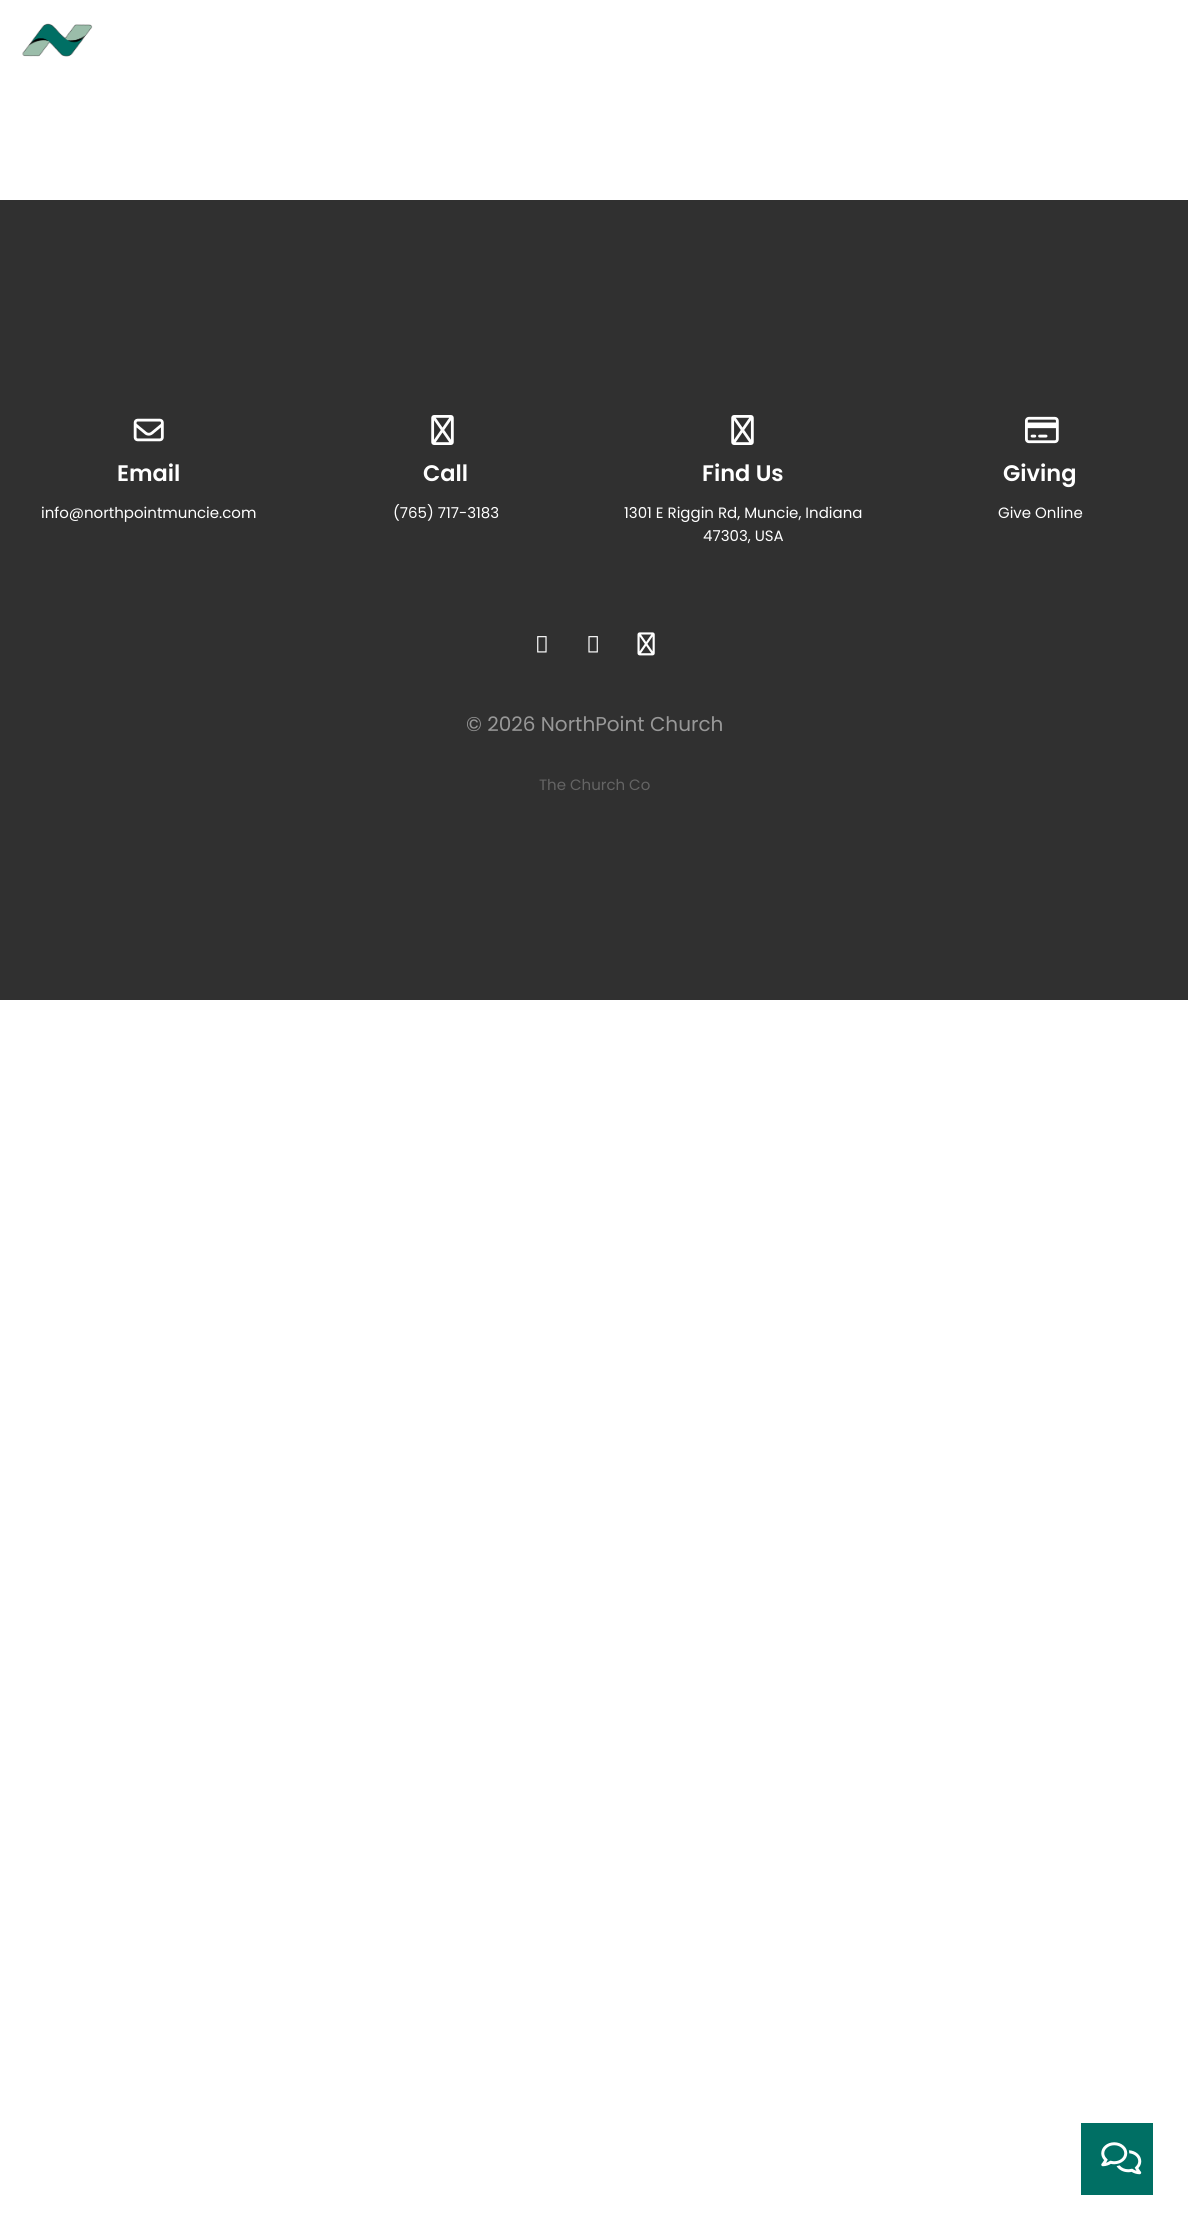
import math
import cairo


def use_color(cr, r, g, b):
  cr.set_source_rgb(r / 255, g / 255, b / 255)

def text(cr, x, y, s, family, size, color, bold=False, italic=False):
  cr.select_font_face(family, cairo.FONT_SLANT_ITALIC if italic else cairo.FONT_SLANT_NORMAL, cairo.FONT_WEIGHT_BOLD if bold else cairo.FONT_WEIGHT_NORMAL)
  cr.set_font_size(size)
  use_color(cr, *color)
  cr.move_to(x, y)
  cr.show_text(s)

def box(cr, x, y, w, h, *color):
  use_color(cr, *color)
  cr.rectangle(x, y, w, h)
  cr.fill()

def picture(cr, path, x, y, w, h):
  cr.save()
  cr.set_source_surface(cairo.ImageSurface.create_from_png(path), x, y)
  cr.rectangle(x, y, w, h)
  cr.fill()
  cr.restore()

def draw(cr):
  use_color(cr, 255, 255, 255)
  cr.paint()
  picture(cr, "img_01.png", 22, 23, 71, 34)
  box(cr, 0, 200, 1188, 800, 48, 48, 48)
  picture(cr, "img_02.png", 133, 418, 31, 24)
  picture(cr, "img_03.png", 431, 415, 23, 30)
  picture(cr, "img_03.png", 731, 415, 23, 30)
  picture(cr, "img_04.png", 1025, 416, 34, 28)
  picture(cr, "img_05.png", 537, 636, 10, 17)
  picture(cr, "img_06.png", 588, 636, 10, 17)
  picture(cr, "img_07.png", 637, 632, 18, 24)
  box(cr, 1081, 2123, 72, 72, 0, 111, 100)
  picture(cr, "img_08.png", 1101, 2142, 41, 33)
  text(cr, 117, 481, "Email", "Poppins SemiBold", 22.5, (255, 255, 255))
  text(cr, 41, 518, "info@northpointmuncie.com", "Poppins", 15, (255, 255, 255))
  text(cr, 423, 481, "Call", "Poppins SemiBold", 22.5, (255, 255, 255))
  text(cr, 393, 518, "(765) 717-3183", "Poppins", 15, (255, 255, 255))
  text(cr, 702, 481, "Find Us", "Poppins SemiBold", 22.5, (255, 255, 255))
  text(cr, 624, 518, "1301 E Riggin Rd, Muncie, Indiana", "Poppins", 15, (255, 255, 255))
  text(cr, 703, 541, "47303, USA", "Poppins", 15, (255, 255, 255))
  text(cr, 1003, 481, "Giving", "Poppins SemiBold", 22.5, (255, 255, 255))
  text(cr, 998, 518, "Give Online", "Poppins", 15, (255, 255, 255))
  text(cr, 466, 731, "© 2026 NorthPoint Church", "Poppins", 20, (152, 152, 152))
  text(cr, 539, 790, "The Church Co", "Poppins", 15, (100, 100, 100))


surface = cairo.ImageSurface(cairo.FORMAT_RGB24, 1188, 2225)
cr = cairo.Context(surface)
options = cairo.FontOptions()
options.set_hint_metrics(cairo.HINT_METRICS_OFF)
options.set_hint_style(cairo.HINT_STYLE_NONE)
cr.set_font_options(options)
cr.set_miter_limit(4)
draw(cr)
surface.write_to_png("out.png")
